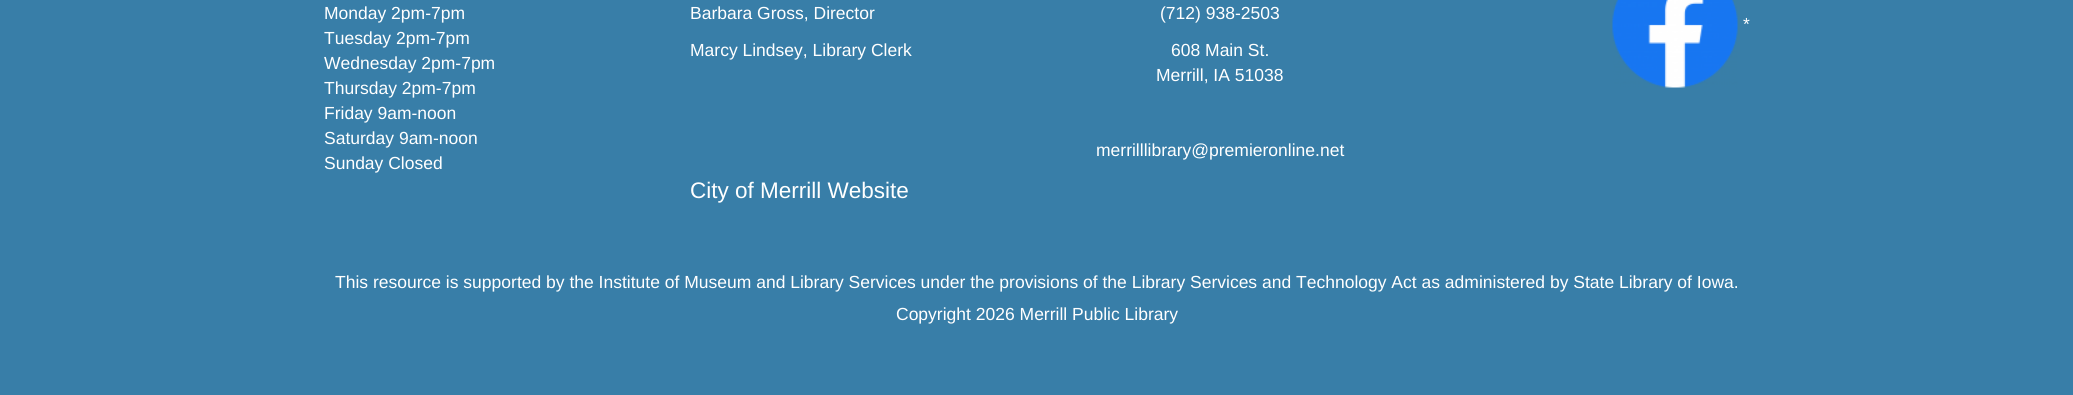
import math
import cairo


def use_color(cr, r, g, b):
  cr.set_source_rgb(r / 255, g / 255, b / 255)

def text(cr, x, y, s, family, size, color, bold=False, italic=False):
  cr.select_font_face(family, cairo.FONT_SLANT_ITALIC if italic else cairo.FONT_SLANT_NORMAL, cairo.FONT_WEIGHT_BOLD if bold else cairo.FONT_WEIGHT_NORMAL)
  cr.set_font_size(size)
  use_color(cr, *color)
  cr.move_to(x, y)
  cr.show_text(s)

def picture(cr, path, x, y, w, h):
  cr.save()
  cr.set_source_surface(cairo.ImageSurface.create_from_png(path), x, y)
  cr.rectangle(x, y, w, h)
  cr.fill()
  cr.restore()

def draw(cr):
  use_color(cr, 56, 126, 168)
  cr.paint()
  picture(cr, "img_01.png", 1612, 0, 126, 88)
  text(cr, 324, 19, "Monday 2pm-7pm", "Liberation Sans", 17.5, (255, 255, 255))
  text(cr, 324, 44, "Tuesday 2pm-7pm", "Liberation Sans", 17.5, (255, 255, 255))
  text(cr, 324, 69, "Wednesday 2pm-7pm", "Liberation Sans", 17.5, (255, 255, 255))
  text(cr, 324, 94, "Thursday 2pm-7pm", "Liberation Sans", 17.5, (255, 255, 255))
  text(cr, 324, 119, "Friday 9am-noon", "Liberation Sans", 17.5, (255, 255, 255))
  text(cr, 324, 144, "Saturday 9am-noon", "Liberation Sans", 17.5, (255, 255, 255))
  text(cr, 324, 169, "Sunday Closed", "Liberation Sans", 17.5, (255, 255, 255))
  text(cr, 690, 19, "Barbara Gross, Director", "Liberation Sans", 17.5, (255, 255, 255))
  text(cr, 690, 56, "Marcy Lindsey, Library Clerk", "Liberation Sans", 17.5, (255, 255, 255))
  text(cr, 690, 198, "City of Merrill Website", "Liberation Sans", 22.5, (255, 255, 255))
  text(cr, 1160, 19, "(712) 938-2503", "Liberation Sans", 17.5, (255, 255, 255))
  text(cr, 1171, 56, "608 Main St.", "Liberation Sans", 17.5, (255, 255, 255))
  text(cr, 1156, 81, "Merrill, IA 51038", "Liberation Sans", 17.5, (255, 255, 255))
  text(cr, 1096, 156, "merrilllibrary@premieronline.net", "Liberation Sans", 17.5, (255, 255, 255))
  text(cr, 1743, 30, "*", "Liberation Sans", 17.5, (255, 255, 255))
  text(cr, 335, 288, "This resource is supported by the Institute of Museum and Library Services under the provisions of the Library Services and Technology Act as administered by State Library of Iowa.", "Liberation Sans", 17.5, (255, 255, 255))
  text(cr, 896, 320, "Copyright 2026 Merrill Public Library", "Liberation Sans", 17.5, (255, 255, 255))


surface = cairo.ImageSurface(cairo.FORMAT_RGB24, 2073, 395)
cr = cairo.Context(surface)
options = cairo.FontOptions()
options.set_hint_metrics(cairo.HINT_METRICS_OFF)
options.set_hint_style(cairo.HINT_STYLE_NONE)
cr.set_font_options(options)
cr.set_miter_limit(4)
draw(cr)
surface.write_to_png("out.png")
